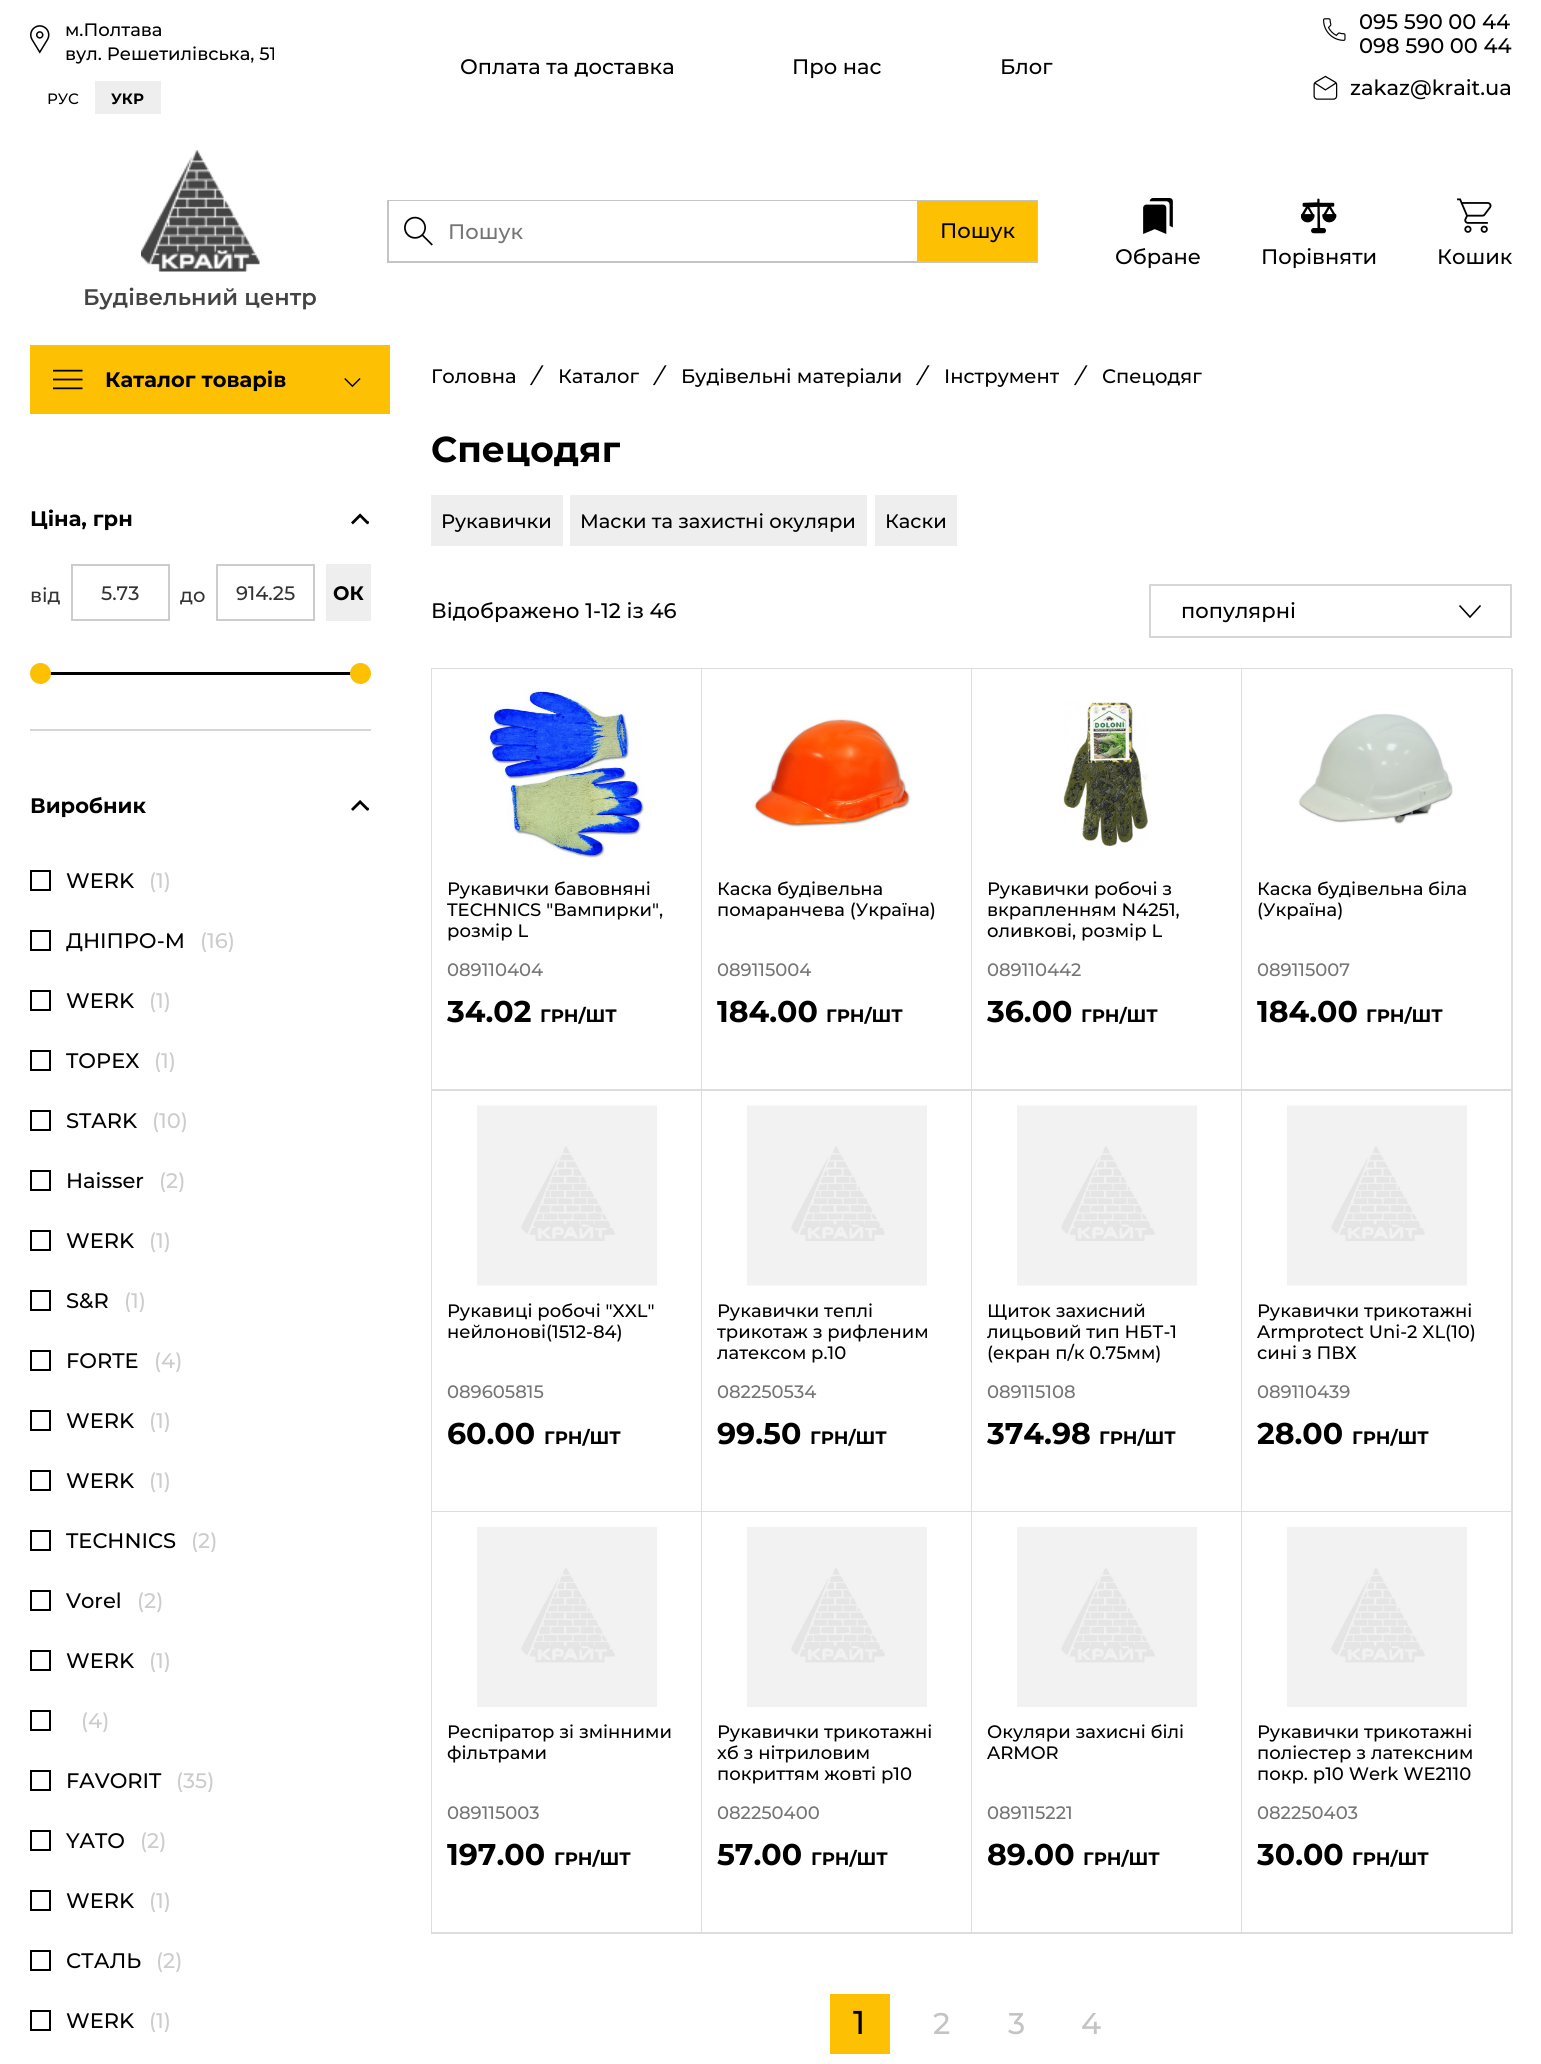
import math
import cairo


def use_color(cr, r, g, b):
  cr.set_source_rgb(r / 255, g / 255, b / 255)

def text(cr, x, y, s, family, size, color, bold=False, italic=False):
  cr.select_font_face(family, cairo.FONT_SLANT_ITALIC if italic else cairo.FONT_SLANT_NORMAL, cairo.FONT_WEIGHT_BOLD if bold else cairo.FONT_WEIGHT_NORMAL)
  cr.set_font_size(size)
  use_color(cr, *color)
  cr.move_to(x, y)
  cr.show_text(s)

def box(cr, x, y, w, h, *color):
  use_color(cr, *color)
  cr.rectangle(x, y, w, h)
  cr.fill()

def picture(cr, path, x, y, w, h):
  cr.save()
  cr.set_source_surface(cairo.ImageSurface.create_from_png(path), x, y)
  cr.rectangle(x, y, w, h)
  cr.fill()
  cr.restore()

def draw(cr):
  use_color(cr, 255, 255, 255)
  cr.paint()
  picture(cr, "img_01.png", 30, 25, 20, 29)
  box(cr, 95, 81, 66, 33, 238, 238, 238)
  picture(cr, "img_02.png", 1323, 18, 23, 23)
  picture(cr, "img_03.png", 1313, 75, 25, 25)
  cr.rectangle(388, 201, 649, 61)
  use_color(cr, 196, 196, 196)
  cr.stroke()
  picture(cr, "img_04.png", 404, 216, 29, 30)
  box(cr, 389, 201, 528, 1, 255, 255, 255)
  box(cr, 917, 201, 120, 60, 253, 192, 2)
  picture(cr, "img_05.png", 1143, 198, 30, 36)
  picture(cr, "img_06.png", 1301, 198, 36, 36)
  picture(cr, "img_07.png", 1457, 198, 35, 35)
  picture(cr, "img_08.png", 141, 150, 119, 122)
  box(cr, 30, 345, 360, 69, 253, 192, 2)
  picture(cr, "img_09.png", 53, 369, 30, 21)
  picture(cr, "img_10.png", 344, 378, 17, 10)
  box(cr, 30, 729, 341, 2, 214, 214, 214)
  picture(cr, "img_11.png", 351, 513, 18, 12)
  cr.rectangle(72, 565, 97, 55)
  use_color(cr, 204, 204, 204)
  cr.stroke()
  cr.rectangle(217, 565, 97, 55)
  cr.stroke()
  box(cr, 326, 564, 45, 57, 238, 238, 238)
  box(cr, 50, 672, 301, 3, 0, 0, 0)
  use_color(cr, 253, 192, 2)
  cr.arc(40.5, 673.5, 10.5, 0, 2 * math.pi)
  cr.fill()
  cr.arc(360.5, 673.5, 10.5, 0, 2 * math.pi)
  cr.fill()
  picture(cr, "img_12.png", 351, 800, 18, 11)
  cr.rectangle(31, 871, 19, 19)
  use_color(cr, 0, 0, 0)
  cr.stroke()
  cr.rectangle(31, 931, 19, 19)
  cr.stroke()
  cr.rectangle(31, 991, 19, 19)
  cr.stroke()
  cr.rectangle(31, 1051, 19, 19)
  cr.stroke()
  cr.rectangle(31, 1111, 19, 19)
  cr.stroke()
  cr.rectangle(31, 1171, 19, 19)
  cr.stroke()
  cr.rectangle(31, 1231, 19, 19)
  cr.stroke()
  cr.rectangle(31, 1291, 19, 19)
  cr.stroke()
  cr.rectangle(31, 1351, 19, 19)
  cr.stroke()
  cr.rectangle(31, 1411, 19, 19)
  cr.stroke()
  cr.rectangle(31, 1471, 19, 19)
  cr.stroke()
  cr.rectangle(31, 1531, 19, 19)
  cr.stroke()
  cr.rectangle(31, 1591, 19, 19)
  cr.stroke()
  cr.rectangle(31, 1651, 19, 19)
  cr.stroke()
  cr.rectangle(31, 1711, 19, 19)
  cr.stroke()
  cr.rectangle(31, 1771, 19, 19)
  cr.stroke()
  cr.rectangle(31, 1831, 19, 19)
  cr.stroke()
  cr.rectangle(31, 1891, 19, 19)
  cr.stroke()
  cr.rectangle(31, 1951, 19, 19)
  cr.stroke()
  cr.rectangle(31, 2011, 19, 19)
  cr.stroke()
  box(cr, 431, 495, 132, 51, 238, 238, 238)
  box(cr, 570, 495, 297, 51, 238, 238, 238)
  box(cr, 875, 495, 82, 51, 238, 238, 238)
  cr.rectangle(1150, 585, 361, 52)
  use_color(cr, 214, 214, 214)
  cr.stroke()
  cr.new_path()
  cr.move_to(1459.5, 605.5)
  cr.line_to(1470, 617)
  cr.line_to(1480.5, 605.5)
  use_color(cr, 0, 0, 0)
  cr.set_line_width(1.6)
  cr.stroke()
  box(cr, 431, 668, 1081, 1, 221, 221, 221)
  box(cr, 431, 668, 2, 1266, 221, 221, 221)
  box(cr, 701, 669, 1, 1265, 221, 221, 221)
  box(cr, 432, 1089, 270, 2, 221, 221, 221)
  box(cr, 432, 669, 1, 420, 255, 255, 255)
  picture(cr, "img_13.png", 487, 688, 158, 171)
  box(cr, 971, 669, 1, 1265, 221, 221, 221)
  box(cr, 702, 1089, 270, 2, 221, 221, 221)
  picture(cr, "img_14.png", 752, 717, 159, 110)
  box(cr, 1241, 669, 1, 1265, 221, 221, 221)
  box(cr, 972, 1089, 270, 2, 221, 221, 221)
  picture(cr, "img_15.png", 1063, 701, 85, 146)
  box(cr, 1511, 669, 2, 1265, 221, 221, 221)
  box(cr, 1242, 1089, 270, 2, 221, 221, 221)
  picture(cr, "img_16.png", 1298, 713, 155, 111)
  box(cr, 432, 1511, 1080, 1, 221, 221, 221)
  box(cr, 432, 1091, 1, 420, 255, 255, 255)
  picture(cr, "img_17.png", 477, 1105, 180, 181)
  picture(cr, "img_17.png", 747, 1105, 180, 181)
  picture(cr, "img_17.png", 1017, 1105, 180, 181)
  picture(cr, "img_17.png", 1287, 1105, 180, 181)
  box(cr, 432, 1932, 1080, 2, 221, 221, 221)
  box(cr, 432, 1512, 1, 420, 255, 255, 255)
  picture(cr, "img_18.png", 477, 1527, 180, 180)
  picture(cr, "img_18.png", 747, 1527, 180, 180)
  picture(cr, "img_18.png", 1017, 1527, 180, 180)
  picture(cr, "img_18.png", 1287, 1527, 180, 180)
  box(cr, 830, 1994, 60, 60, 253, 192, 2)
  text(cr, 65, 36, "м.Полтава", "Montserrat Medium", 18, (0, 0, 0))
  text(cr, 65, 60, "вул. Решетилівська, 51", "Montserrat Medium", 18, (0, 0, 0))
  text(cr, 47, 104, "РУС", "Montserrat Medium", 15, (0, 0, 0))
  text(cr, 111, 104, "УКР", "Montserrat", 15, (0, 0, 0), bold=True)
  text(cr, 460, 74, "Оплата та доставка", "Montserrat Medium", 21, (0, 0, 0))
  text(cr, 792, 74, "Про нас", "Montserrat Medium", 21, (0, 0, 0))
  text(cr, 1000, 74, "Блог", "Montserrat Medium", 21, (0, 0, 0))
  text(cr, 1359, 29, "095 590 00 44", "Montserrat Medium", 21, (0, 0, 0))
  text(cr, 1359, 53, "098 590 00 44", "Montserrat Medium", 21, (0, 0, 0))
  text(cr, 1350, 95, "zakaz@krait.ua", "Montserrat Medium", 21, (0, 0, 0))
  text(cr, 448, 239, "Пошук", "Montserrat Medium", 21, (117, 117, 117))
  text(cr, 940, 238, "Пошук", "Montserrat Medium", 21, (0, 0, 0))
  text(cr, 1115, 264, "Обране", "Montserrat Medium", 21, (0, 0, 0))
  text(cr, 1261, 264, "Порівняти", "Montserrat Medium", 21, (0, 0, 0))
  text(cr, 1437, 264, "Кошик", "Montserrat Medium", 21, (0, 0, 0))
  text(cr, 83, 305, "Будівельний центр", "Montserrat SemiBold", 22.5, (68, 68, 68))
  text(cr, 105, 387, "Каталог товарів", "Montserrat", 21, (0, 0, 0), bold=True)
  text(cr, 30, 526, "Ціна, грн", "Montserrat", 21, (0, 0, 0), bold=True)
  text(cr, 30, 602, "від", "Montserrat Medium", 19.5, (51, 51, 51))
  text(cr, 101, 600, "5.73", "Montserrat Medium", 19.5, (51, 51, 51))
  text(cr, 180, 602, "до", "Montserrat Medium", 19.5, (51, 51, 51))
  text(cr, 236, 600, "914.25", "Montserrat Medium", 19.5, (51, 51, 51))
  text(cr, 333, 600, "ОК", "Montserrat", 19.5, (0, 0, 0), bold=True)
  text(cr, 30, 813, "Виробник", "Montserrat", 21, (0, 0, 0), bold=True)
  text(cr, 66, 888, "WERK", "Montserrat Medium", 21, (0, 0, 0))
  text(cr, 149, 888, "(1)", "Montserrat Medium", 21, (204, 204, 204))
  text(cr, 66, 948, "ДНIПРО-М", "Montserrat Medium", 21, (0, 0, 0))
  text(cr, 200, 948, "(16)", "Montserrat Medium", 21, (204, 204, 204))
  text(cr, 66, 1008, "WERK", "Montserrat Medium", 21, (0, 0, 0))
  text(cr, 149, 1008, "(1)", "Montserrat Medium", 21, (204, 204, 204))
  text(cr, 66, 1068, "TOPEX", "Montserrat Medium", 21, (0, 0, 0))
  text(cr, 154, 1068, "(1)", "Montserrat Medium", 21, (204, 204, 204))
  text(cr, 66, 1128, "STARK", "Montserrat Medium", 21, (0, 0, 0))
  text(cr, 152, 1128, "(10)", "Montserrat Medium", 21, (204, 204, 204))
  text(cr, 66, 1188, "Haisser", "Montserrat Medium", 21, (0, 0, 0))
  text(cr, 159, 1188, "(2)", "Montserrat Medium", 21, (204, 204, 204))
  text(cr, 66, 1248, "WERK", "Montserrat Medium", 21, (0, 0, 0))
  text(cr, 149, 1248, "(1)", "Montserrat Medium", 21, (204, 204, 204))
  text(cr, 66, 1308, "S&R", "Montserrat Medium", 21, (0, 0, 0))
  text(cr, 124, 1308, "(1)", "Montserrat Medium", 21, (204, 204, 204))
  text(cr, 66, 1368, "FORTE", "Montserrat Medium", 21, (0, 0, 0))
  text(cr, 154, 1368, "(4)", "Montserrat Medium", 21, (204, 204, 204))
  text(cr, 66, 1428, "WERK", "Montserrat Medium", 21, (0, 0, 0))
  text(cr, 149, 1428, "(1)", "Montserrat Medium", 21, (204, 204, 204))
  text(cr, 66, 1488, "WERK", "Montserrat Medium", 21, (0, 0, 0))
  text(cr, 149, 1488, "(1)", "Montserrat Medium", 21, (204, 204, 204))
  text(cr, 66, 1548, "TECHNICS", "Montserrat Medium", 21, (0, 0, 0))
  text(cr, 191, 1548, "(2)", "Montserrat Medium", 21, (204, 204, 204))
  text(cr, 66, 1608, "Vorel", "Montserrat Medium", 21, (0, 0, 0))
  text(cr, 137, 1608, "(2)", "Montserrat Medium", 21, (204, 204, 204))
  text(cr, 66, 1668, "WERK", "Montserrat Medium", 21, (0, 0, 0))
  text(cr, 149, 1668, "(1)", "Montserrat Medium", 21, (204, 204, 204))
  text(cr, 81, 1728, "(4)", "Montserrat Medium", 21, (204, 204, 204))
  text(cr, 66, 1788, "FAVORIT", "Montserrat Medium", 21, (0, 0, 0))
  text(cr, 176, 1788, "(35)", "Montserrat Medium", 21, (204, 204, 204))
  text(cr, 66, 1848, "YATO", "Montserrat Medium", 21, (0, 0, 0))
  text(cr, 140, 1848, "(2)", "Montserrat Medium", 21, (204, 204, 204))
  text(cr, 66, 1908, "WERK", "Montserrat Medium", 21, (0, 0, 0))
  text(cr, 149, 1908, "(1)", "Montserrat Medium", 21, (204, 204, 204))
  text(cr, 66, 1968, "СТАЛЬ", "Montserrat Medium", 21, (0, 0, 0))
  text(cr, 156, 1968, "(2)", "Montserrat Medium", 21, (204, 204, 204))
  text(cr, 66, 2028, "WERK", "Montserrat Medium", 21, (0, 0, 0))
  text(cr, 149, 2028, "(1)", "Montserrat Medium", 21, (204, 204, 204))
  text(cr, 431, 383, "Головна", "Montserrat Medium", 19.5, (0, 0, 0))
  text(cr, 531, 383, "/", "Montserrat Medium", 21, (0, 0, 0), italic=True)
  text(cr, 558, 383, "Каталог", "Montserrat Medium", 19.5, (0, 0, 0))
  text(cr, 654, 383, "/", "Montserrat Medium", 21, (0, 0, 0), italic=True)
  text(cr, 681, 383, "Будівельні матеріали", "Montserrat Medium", 19.5, (0, 0, 0))
  text(cr, 917, 383, "/", "Montserrat Medium", 21, (0, 0, 0), italic=True)
  cr.save()
  cr.rectangle(944, 345, 115, 60)
  cr.clip()
  text(cr, 944, 383, "Інструмент", "Montserrat Medium", 19.5, (0, 0, 0))
  cr.restore()
  text(cr, 1075, 383, "/", "Montserrat Medium", 21, (0, 0, 0), italic=True)
  text(cr, 1102, 383, "Спецодяг", "Montserrat Medium", 19.5, (0, 0, 0))
  text(cr, 431, 462, "Спецодяг", "Montserrat", 36, (0, 0, 0), bold=True)
  text(cr, 441, 528, "Рукавички", "Montserrat Medium", 19.5, (0, 0, 0))
  text(cr, 580, 528, "Маски та захистні окуляри", "Montserrat Medium", 19.5, (0, 0, 0))
  text(cr, 885, 528, "Каски", "Montserrat Medium", 19.5, (0, 0, 0))
  text(cr, 431, 618, "Відображено 1-12 із 46", "Montserrat Medium", 21, (0, 0, 0))
  text(cr, 1181, 618, "популярні", "Montserrat Medium", 21, (0, 0, 0))
  text(cr, 447, 895, "Рукавички бавовняні", "Montserrat Medium", 18, (0, 0, 0))
  text(cr, 447, 916, "TECHNICS \"Вампирки\",", "Montserrat Medium", 18, (0, 0, 0))
  text(cr, 447, 937, "розмір L", "Montserrat Medium", 18, (0, 0, 0))
  text(cr, 447, 976, "089110404", "Montserrat Medium", 18, (117, 117, 117))
  text(cr, 447, 1022, "34.02", "Montserrat", 30, (0, 0, 0), bold=True)
  text(cr, 540, 1022, "ГРН/ШТ", "Montserrat", 18, (0, 0, 0), bold=True)
  text(cr, 717, 895, "Каска будiвельна", "Montserrat Medium", 18, (0, 0, 0))
  text(cr, 717, 916, "помаранчева (Україна)", "Montserrat Medium", 18, (0, 0, 0))
  text(cr, 717, 976, "089115004", "Montserrat Medium", 18, (117, 117, 117))
  text(cr, 717, 1022, "184.00", "Montserrat", 30, (0, 0, 0), bold=True)
  text(cr, 826, 1022, "ГРН/ШТ", "Montserrat", 18, (0, 0, 0), bold=True)
  text(cr, 987, 895, "Рукавички робочі з", "Montserrat Medium", 18, (0, 0, 0))
  text(cr, 987, 916, "вкрапленням N4251,", "Montserrat Medium", 18, (0, 0, 0))
  text(cr, 987, 937, "оливкові, розмір L", "Montserrat Medium", 18, (0, 0, 0))
  text(cr, 987, 976, "089110442", "Montserrat Medium", 18, (117, 117, 117))
  text(cr, 987, 1022, "36.00", "Montserrat", 30, (0, 0, 0), bold=True)
  text(cr, 1081, 1022, "ГРН/ШТ", "Montserrat", 18, (0, 0, 0), bold=True)
  text(cr, 1257, 895, "Каска будівельна біла", "Montserrat Medium", 18, (0, 0, 0))
  text(cr, 1257, 916, "(Україна)", "Montserrat Medium", 18, (0, 0, 0))
  text(cr, 1257, 976, "089115007", "Montserrat Medium", 18, (117, 117, 117))
  text(cr, 1257, 1022, "184.00", "Montserrat", 30, (0, 0, 0), bold=True)
  text(cr, 1366, 1022, "ГРН/ШТ", "Montserrat", 18, (0, 0, 0), bold=True)
  text(cr, 447, 1317, "Рукавицi робочi \"XXL\"", "Montserrat Medium", 18, (0, 0, 0))
  text(cr, 447, 1338, "нейлоновi(1512-84)", "Montserrat Medium", 18, (0, 0, 0))
  text(cr, 447, 1398, "089605815", "Montserrat Medium", 18, (117, 117, 117))
  text(cr, 447, 1444, "60.00", "Montserrat", 30, (0, 0, 0), bold=True)
  text(cr, 544, 1444, "ГРН/ШТ", "Montserrat", 18, (0, 0, 0), bold=True)
  text(cr, 717, 1317, "Рукавички теплi", "Montserrat Medium", 18, (0, 0, 0))
  text(cr, 717, 1338, "трикотаж з рифленим", "Montserrat Medium", 18, (0, 0, 0))
  text(cr, 717, 1359, "латексом р.10", "Montserrat Medium", 18, (0, 0, 0))
  text(cr, 717, 1398, "082250534", "Montserrat Medium", 18, (117, 117, 117))
  text(cr, 717, 1444, "99.50", "Montserrat", 30, (0, 0, 0), bold=True)
  text(cr, 810, 1444, "ГРН/ШТ", "Montserrat", 18, (0, 0, 0), bold=True)
  text(cr, 987, 1317, "Щиток захисний", "Montserrat Medium", 18, (0, 0, 0))
  text(cr, 987, 1338, "лицьовий тип НБТ-1", "Montserrat Medium", 18, (0, 0, 0))
  text(cr, 987, 1359, "(екран п/к 0.75мм)", "Montserrat Medium", 18, (0, 0, 0))
  text(cr, 987, 1398, "089115108", "Montserrat Medium", 18, (117, 117, 117))
  text(cr, 987, 1444, "374.98", "Montserrat", 30, (0, 0, 0), bold=True)
  text(cr, 1099, 1444, "ГРН/ШТ", "Montserrat", 18, (0, 0, 0), bold=True)
  text(cr, 1257, 1317, "Рукавички трикотажнi", "Montserrat Medium", 18, (0, 0, 0))
  text(cr, 1257, 1338, "Armprotect Uni-2 XL(10)", "Montserrat Medium", 18, (0, 0, 0))
  text(cr, 1257, 1359, "синi з ПВХ", "Montserrat Medium", 18, (0, 0, 0))
  text(cr, 1257, 1398, "089110439", "Montserrat Medium", 18, (117, 117, 117))
  text(cr, 1257, 1444, "28.00", "Montserrat", 30, (0, 0, 0), bold=True)
  text(cr, 1352, 1444, "ГРН/ШТ", "Montserrat", 18, (0, 0, 0), bold=True)
  text(cr, 447, 1738, "Респiратор зi змiнними", "Montserrat Medium", 18, (0, 0, 0))
  text(cr, 447, 1759, "фiльтрами", "Montserrat Medium", 18, (0, 0, 0))
  text(cr, 447, 1819, "089115003", "Montserrat Medium", 18, (117, 117, 117))
  text(cr, 447, 1865, "197.00", "Montserrat", 30, (0, 0, 0), bold=True)
  text(cr, 554, 1865, "ГРН/ШТ", "Montserrat", 18, (0, 0, 0), bold=True)
  text(cr, 717, 1738, "Рукавички трикотажнi", "Montserrat Medium", 18, (0, 0, 0))
  text(cr, 717, 1759, "хб з нiтриловим", "Montserrat Medium", 18, (0, 0, 0))
  text(cr, 717, 1780, "покриттям жовтi р10", "Montserrat Medium", 18, (0, 0, 0))
  text(cr, 717, 1819, "082250400", "Montserrat Medium", 18, (117, 117, 117))
  text(cr, 717, 1865, "57.00", "Montserrat", 30, (0, 0, 0), bold=True)
  text(cr, 811, 1865, "ГРН/ШТ", "Montserrat", 18, (0, 0, 0), bold=True)
  text(cr, 987, 1738, "Окуляри захиснi бiлi", "Montserrat Medium", 18, (0, 0, 0))
  text(cr, 987, 1759, "ARMOR", "Montserrat Medium", 18, (0, 0, 0))
  text(cr, 987, 1819, "089115221", "Montserrat Medium", 18, (117, 117, 117))
  text(cr, 987, 1865, "89.00", "Montserrat", 30, (0, 0, 0), bold=True)
  text(cr, 1083, 1865, "ГРН/ШТ", "Montserrat", 18, (0, 0, 0), bold=True)
  text(cr, 1257, 1738, "Рукавички трикотажнi", "Montserrat Medium", 18, (0, 0, 0))
  text(cr, 1257, 1759, "полiестер з латексним", "Montserrat Medium", 18, (0, 0, 0))
  text(cr, 1257, 1780, "покр. р10 Werk WE2110", "Montserrat Medium", 18, (0, 0, 0))
  text(cr, 1257, 1819, "082250403", "Montserrat Medium", 18, (117, 117, 117))
  text(cr, 1257, 1865, "30.00", "Montserrat", 30, (0, 0, 0), bold=True)
  text(cr, 1352, 1865, "ГРН/ШТ", "Montserrat", 18, (0, 0, 0), bold=True)
  text(cr, 853, 2034, "1", "Montserrat Medium", 33, (0, 0, 0))
  text(cr, 933, 2034, "2", "Montserrat Medium", 30, (196, 196, 196))
  text(cr, 1008, 2034, "3", "Montserrat Medium", 30, (196, 196, 196))
  text(cr, 1081, 2034, "4", "Montserrat Medium", 30, (196, 196, 196))


surface = cairo.ImageSurface(cairo.FORMAT_RGB24, 1541, 2064)
cr = cairo.Context(surface)
options = cairo.FontOptions()
options.set_hint_metrics(cairo.HINT_METRICS_OFF)
options.set_hint_style(cairo.HINT_STYLE_NONE)
cr.set_font_options(options)
cr.set_miter_limit(4)
draw(cr)
surface.write_to_png("out.png")
